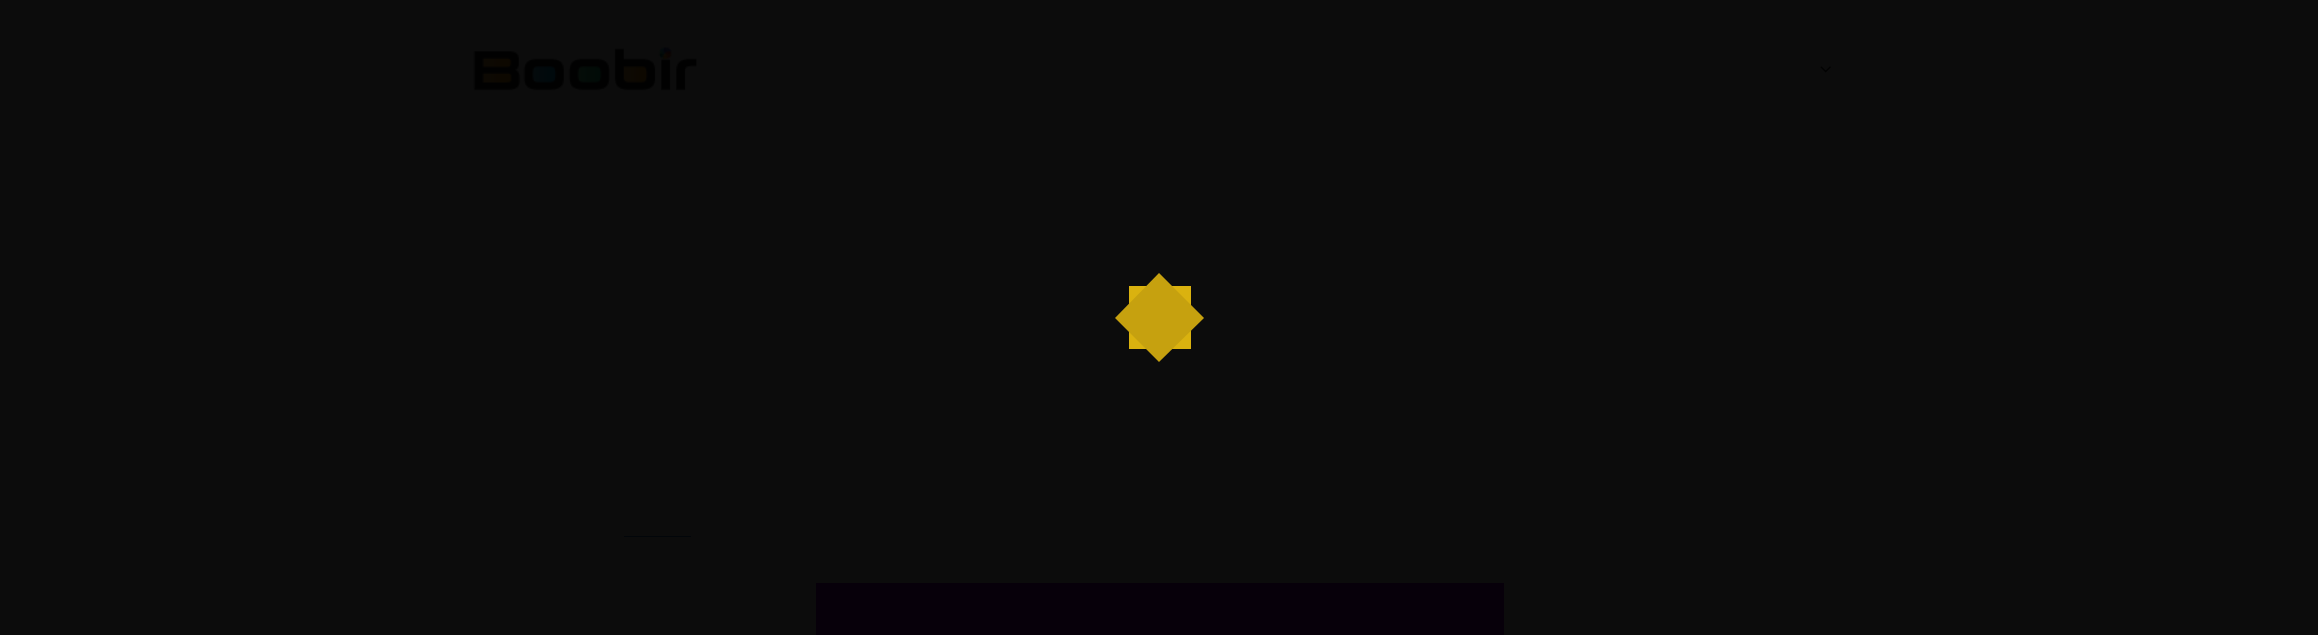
import math
import cairo


def use_color(cr, r, g, b):
  cr.set_source_rgb(r / 255, g / 255, b / 255)

def box(cr, x, y, w, h, *color):
  use_color(cr, *color)
  cr.rectangle(x, y, w, h)
  cr.fill()

def picture(cr, path, x, y, w, h):
  cr.save()
  cr.set_source_surface(cairo.ImageSurface.create_from_png(path), x, y)
  cr.rectangle(x, y, w, h)
  cr.fill()
  cr.restore()

def draw(cr):
  use_color(cr, 12, 12, 12)
  cr.paint()
  picture(cr, "img_01.png", 473, 47, 224, 44)
  picture(cr, "img_02.png", 1820, 66, 11, 7)
  box(cr, 1129, 286, 62, 63, 218, 178, 15)
  use_color(cr, 198, 161, 15)
  cr.new_path()
  cr.move_to(1159, 273)
  cr.line_to(1204, 318)
  cr.line_to(1159, 362)
  cr.line_to(1115, 318)
  cr.close_path()
  cr.fill()
  box(cr, 624, 536, 67, 1, 2, 6, 10)
  box(cr, 816, 583, 688, 52, 7, 0, 10)


surface = cairo.ImageSurface(cairo.FORMAT_RGB24, 2318, 635)
cr = cairo.Context(surface)
options = cairo.FontOptions()
options.set_hint_metrics(cairo.HINT_METRICS_OFF)
options.set_hint_style(cairo.HINT_STYLE_NONE)
cr.set_font_options(options)
cr.set_miter_limit(4)
draw(cr)
surface.write_to_png("out.png")
